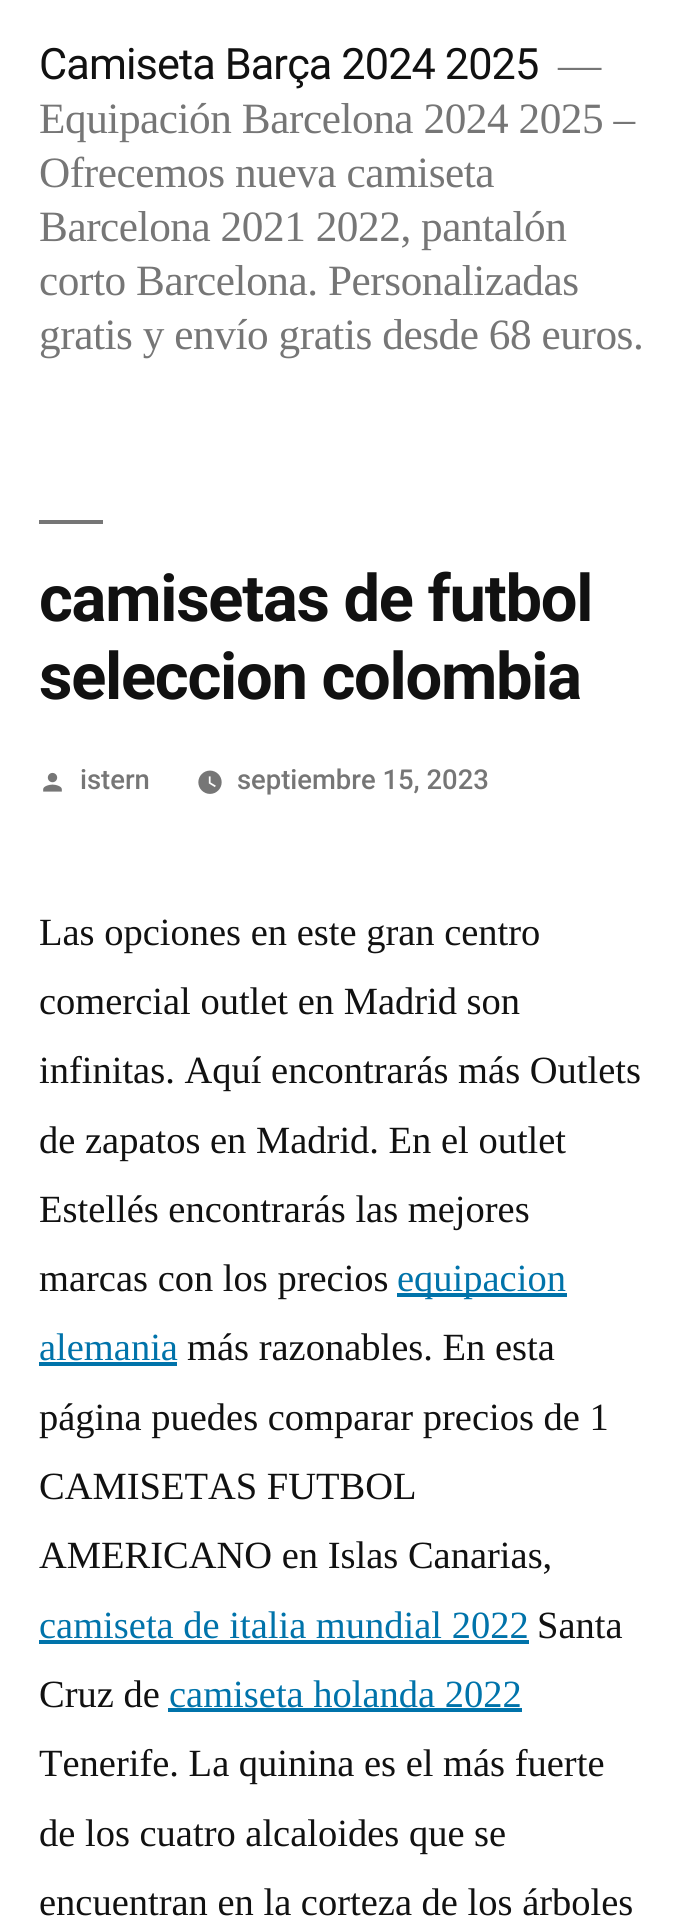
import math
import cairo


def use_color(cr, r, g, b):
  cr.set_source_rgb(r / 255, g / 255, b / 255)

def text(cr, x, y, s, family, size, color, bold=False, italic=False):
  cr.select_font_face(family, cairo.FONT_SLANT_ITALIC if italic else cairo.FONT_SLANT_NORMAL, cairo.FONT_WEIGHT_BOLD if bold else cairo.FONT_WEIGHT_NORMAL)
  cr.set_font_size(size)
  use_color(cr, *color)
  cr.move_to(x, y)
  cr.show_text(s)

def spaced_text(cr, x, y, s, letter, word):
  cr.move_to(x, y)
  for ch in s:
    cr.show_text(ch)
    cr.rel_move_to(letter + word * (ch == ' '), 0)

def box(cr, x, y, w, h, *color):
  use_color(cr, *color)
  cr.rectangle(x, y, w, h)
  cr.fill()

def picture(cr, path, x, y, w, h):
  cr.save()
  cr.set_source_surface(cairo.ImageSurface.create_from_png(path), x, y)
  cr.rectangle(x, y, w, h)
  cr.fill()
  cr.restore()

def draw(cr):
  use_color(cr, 255, 255, 255)
  cr.paint()
  box(cr, 39, 520, 64, 4, 118, 118, 118)
  picture(cr, "img_01.png", 43, 772, 19, 20)
  picture(cr, "img_02.png", 198, 770, 24, 24)
  box(cr, 397, 1293, 170, 4, 0, 115, 170)
  box(cr, 39, 1362, 138, 4, 0, 115, 170)
  box(cr, 39, 1640, 490, 4, 0, 115, 170)
  box(cr, 168, 1708, 354, 4, 0, 115, 170)
  cr.select_font_face("Roboto")
  cr.set_font_size(43.25)
  use_color(cr, 17, 17, 17)
  spaced_text(cr, 39, 79, "Camiseta Barça 2024 2025", -0.9, 0)
  cr.select_font_face("Liberation Serif")
  use_color(cr, 118, 118, 118)
  spaced_text(cr, 558, 79, "—", -0.45, 0)
  spaced_text(cr, 39, 133, "Equipación Barcelona 2024 2025 –", -0.45, 0)
  spaced_text(cr, 39, 187, "Ofrecemos nueva camiseta", -0.45, 0)
  spaced_text(cr, 39, 241, "Barcelona 2021 2022, pantalón", -0.45, 0)
  spaced_text(cr, 39, 295, "corto Barcelona. Personalizadas", -0.45, 0)
  spaced_text(cr, 39, 349, "gratis y envío gratis desde 68 euros.", -0.45, 0)
  cr.select_font_face("Roboto", cairo.FONT_SLANT_NORMAL, cairo.FONT_WEIGHT_BOLD)
  cr.set_font_size(65)
  use_color(cr, 17, 17, 17)
  spaced_text(cr, 39, 621, "camisetas de futbol", -1.25, 0)
  spaced_text(cr, 39, 699, "seleccion colombia", -1.25, 0)
  text(cr, 80, 789, "istern", "Roboto Medium", 27.4, (118, 118, 118))
  text(cr, 237, 789, "septiembre 15, 2023", "Roboto Medium", 27.4, (118, 118, 118))
  text(cr, 39, 945, "Las opciones en este gran centro", "Liberation Serif", 38.5, (17, 17, 17))
  text(cr, 39, 1014, "comercial outlet en Madrid son", "Liberation Serif", 38.5, (17, 17, 17))
  text(cr, 39, 1083, "infinitas. Aquí encontrarás más Outlets", "Liberation Serif", 38.5, (17, 17, 17))
  text(cr, 39, 1153, "de zapatos en Madrid. En el outlet", "Liberation Serif", 38.5, (17, 17, 17))
  text(cr, 39, 1222, "Estellés encontrarás las mejores", "Liberation Serif", 38.5, (17, 17, 17))
  text(cr, 39, 1291, "marcas con los precios", "Liberation Serif", 38.5, (17, 17, 17))
  text(cr, 397, 1291, "equipacion", "Liberation Serif", 38.5, (0, 115, 170))
  text(cr, 39, 1360, "alemania", "Liberation Serif", 38.5, (0, 115, 170))
  text(cr, 187, 1360, "más razonables. En esta", "Liberation Serif", 38.5, (17, 17, 17))
  text(cr, 39, 1430, "página puedes comparar precios de 1", "Liberation Serif", 38.5, (17, 17, 17))
  text(cr, 39, 1499, "CAMISETAS FUTBOL", "Liberation Serif", 38.5, (17, 17, 17))
  text(cr, 39, 1568, "AMERICANO en Islas Canarias,", "Liberation Serif", 38.5, (17, 17, 17))
  text(cr, 39, 1638, "camiseta de italia mundial 2022", "Liberation Serif", 38.5, (0, 115, 170))
  text(cr, 537, 1638, "Santa", "Liberation Serif", 38.5, (17, 17, 17))
  text(cr, 39, 1707, "Cruz de", "Liberation Serif", 38.5, (17, 17, 17))
  text(cr, 169, 1707, "camiseta holanda 2022", "Liberation Serif", 38.5, (0, 115, 170))
  text(cr, 39, 1776, "Tenerife. La quinina es el más fuerte", "Liberation Serif", 38.5, (17, 17, 17))
  text(cr, 39, 1846, "de los cuatro alcaloides que se", "Liberation Serif", 38.5, (17, 17, 17))
  text(cr, 39, 1915, "encuentran en la corteza de los árboles", "Liberation Serif", 38.5, (17, 17, 17))


surface = cairo.ImageSurface(cairo.FORMAT_RGB24, 683, 1926)
cr = cairo.Context(surface)
options = cairo.FontOptions()
options.set_hint_metrics(cairo.HINT_METRICS_OFF)
options.set_hint_style(cairo.HINT_STYLE_NONE)
cr.set_font_options(options)
cr.set_miter_limit(4)
draw(cr)
surface.write_to_png("out.png")
